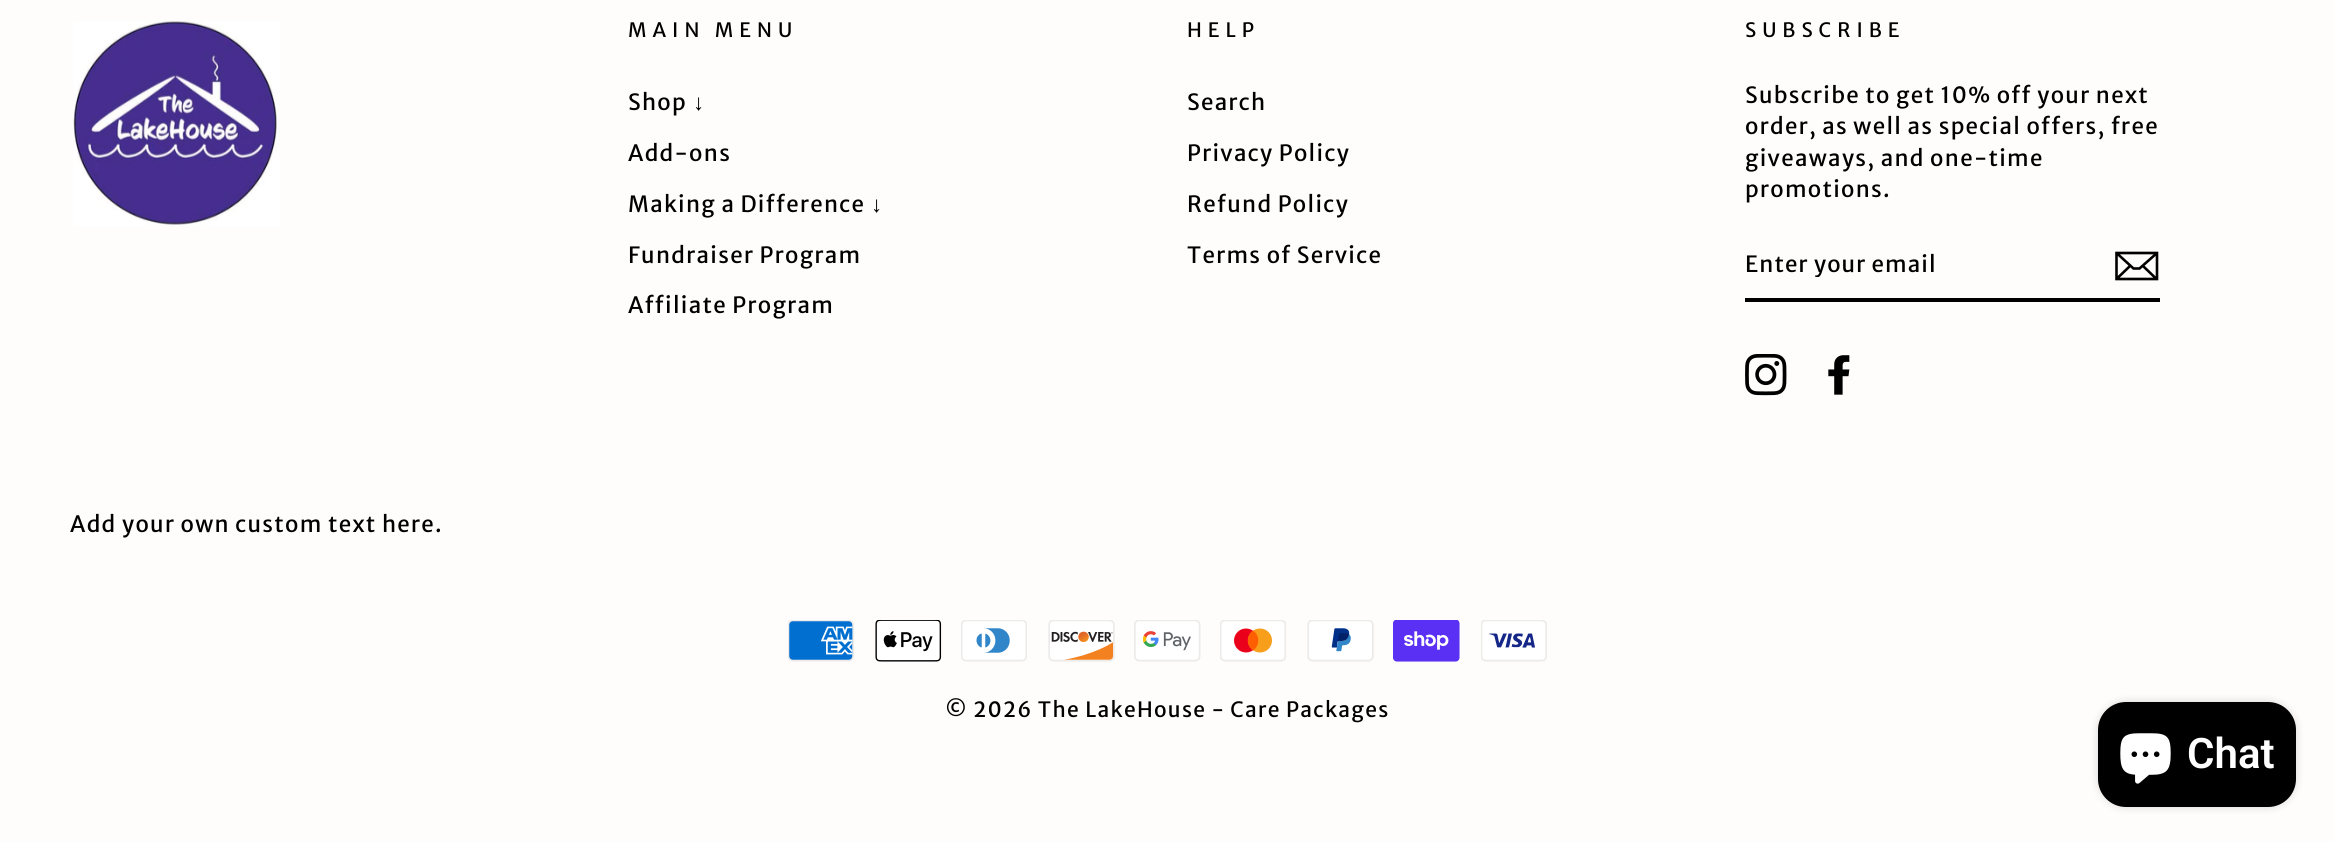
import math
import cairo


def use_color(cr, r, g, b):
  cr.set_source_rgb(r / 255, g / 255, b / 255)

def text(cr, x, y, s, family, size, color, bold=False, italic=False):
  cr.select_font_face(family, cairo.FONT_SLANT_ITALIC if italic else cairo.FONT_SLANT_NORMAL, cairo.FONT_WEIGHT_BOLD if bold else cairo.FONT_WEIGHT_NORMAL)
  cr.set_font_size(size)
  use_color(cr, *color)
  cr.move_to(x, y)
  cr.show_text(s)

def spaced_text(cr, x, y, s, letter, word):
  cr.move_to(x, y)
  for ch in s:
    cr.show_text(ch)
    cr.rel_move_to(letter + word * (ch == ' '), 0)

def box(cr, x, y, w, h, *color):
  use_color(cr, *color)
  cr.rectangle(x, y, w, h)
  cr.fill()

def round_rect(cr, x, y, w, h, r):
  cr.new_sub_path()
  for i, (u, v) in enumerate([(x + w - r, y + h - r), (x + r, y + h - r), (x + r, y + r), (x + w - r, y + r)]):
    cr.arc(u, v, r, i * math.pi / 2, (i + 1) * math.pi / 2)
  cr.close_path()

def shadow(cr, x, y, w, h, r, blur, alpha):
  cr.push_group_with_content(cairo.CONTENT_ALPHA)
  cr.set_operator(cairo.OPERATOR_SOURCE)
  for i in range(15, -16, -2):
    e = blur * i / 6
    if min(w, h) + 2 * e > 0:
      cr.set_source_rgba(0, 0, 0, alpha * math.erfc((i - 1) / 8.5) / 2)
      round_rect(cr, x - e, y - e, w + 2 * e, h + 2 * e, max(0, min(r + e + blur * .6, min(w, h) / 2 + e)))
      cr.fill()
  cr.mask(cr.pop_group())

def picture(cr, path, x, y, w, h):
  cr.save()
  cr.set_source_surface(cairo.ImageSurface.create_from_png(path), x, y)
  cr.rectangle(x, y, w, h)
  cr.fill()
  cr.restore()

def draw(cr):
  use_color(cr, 255, 253, 252)
  cr.paint()
  picture(cr, "img_01.png", 73, 21, 207, 206)
  box(cr, 1745, 298, 415, 4, 0, 0, 0)
  cr.new_path()
  cr.move_to(2157, 279)
  cr.line_to(2116.5, 279)
  cr.line_to(2116.5, 253)
  cr.line_to(2157, 253)
  cr.close_path()
  cr.move_to(2116.5, 253)
  cr.line_to(2133.5, 268.5)
  cr.line_to(2139.5, 268.5)
  cr.line_to(2157, 253)
  cr.move_to(2130, 266)
  cr.line_to(2117, 278.5)
  cr.move_to(2156.5, 279)
  cr.line_to(2143, 266)
  cr.set_line_width(2.6)
  cr.stroke()
  picture(cr, "img_02.png", 1745, 354, 42, 42)
  picture(cr, "img_03.png", 1828, 355, 22, 40)
  picture(cr, "img_04.png", 788, 620, 66, 42)
  picture(cr, "img_05.png", 875, 620, 67, 42)
  picture(cr, "img_06.png", 961, 620, 66, 42)
  picture(cr, "img_07.png", 1048, 620, 67, 42)
  picture(cr, "img_08.png", 1134, 620, 67, 42)
  picture(cr, "img_09.png", 1220, 620, 66, 42)
  picture(cr, "img_10.png", 1307, 620, 67, 42)
  picture(cr, "img_11.png", 1393, 620, 67, 42)
  picture(cr, "img_12.png", 1481, 620, 66, 42)
  use_color(cr, 0, 0, 0)
  shadow(cr, 2098, 702, 198, 105, 28, 4.5, 0.15)
  use_color(cr, 0, 0, 0)
  round_rect(cr, 2098, 702, 198, 105, 28)
  cr.fill()
  picture(cr, "img_13.png", 2120, 733, 51, 51)
  cr.select_font_face("Merriweather Sans")
  cr.set_font_size(19.75)
  spaced_text(cr, 628, 37, "MAIN MENU", 6, 0)
  cr.set_font_size(22.3)
  spaced_text(cr, 628, 110, "Shop", 1.3, 0)
  cr.select_font_face("Liberation Sans")
  spaced_text(cr, 693, 110, "↓", 1.3, 0)
  cr.select_font_face("Merriweather Sans")
  spaced_text(cr, 628, 161, "Add-ons", 1.3, 0)
  spaced_text(cr, 628, 212, "Making a Difference", 1.3, 0)
  cr.select_font_face("Liberation Sans")
  spaced_text(cr, 871, 212, "↓", 1.3, 0)
  cr.select_font_face("Merriweather Sans")
  spaced_text(cr, 628, 263, "Fundraiser Program", 1.3, 0)
  spaced_text(cr, 628, 313, "Affiliate Program", 1.3, 0)
  cr.set_font_size(19.75)
  spaced_text(cr, 1187, 37, "HELP", 6, 0)
  cr.set_font_size(22.3)
  spaced_text(cr, 1187, 110, "Search", 1.3, 0)
  spaced_text(cr, 1187, 161, "Privacy Policy", 1.3, 0)
  spaced_text(cr, 1187, 212, "Refund Policy", 1.3, 0)
  spaced_text(cr, 1187, 263, "Terms of Service", 1.3, 0)
  cr.set_font_size(19.75)
  spaced_text(cr, 1745, 37, "SUBSCRIBE", 6, 0)
  cr.set_font_size(22.3)
  spaced_text(cr, 1745, 103, "Subscribe to get 10% off your next", 1.3, 0)
  spaced_text(cr, 1745, 134, "order, as well as special offers, free", 1.3, 0)
  spaced_text(cr, 1745, 166, "giveaways, and one-time", 1.3, 0)
  spaced_text(cr, 1745, 197, "promotions.", 1.3, 0)
  cr.save()
  cr.rectangle(1745, 249, 336, 28)
  cr.clip()
  spaced_text(cr, 1745, 272, "Enter your email", 1.1, 0)
  cr.restore()
  spaced_text(cr, 70, 532, "Add your own custom text here.", 1.3, 0)
  cr.set_font_size(21)
  spaced_text(cr, 945, 717, "© 2026 The LakeHouse - Care Packages", 1.3, 0)
  text(cr, 2187, 768, "Chat", "Roboto SemiBold", 42, (255, 255, 255))


surface = cairo.ImageSurface(cairo.FORMAT_RGB24, 2334, 842)
cr = cairo.Context(surface)
options = cairo.FontOptions()
options.set_hint_metrics(cairo.HINT_METRICS_OFF)
options.set_hint_style(cairo.HINT_STYLE_NONE)
cr.set_font_options(options)
cr.set_miter_limit(4)
draw(cr)
surface.write_to_png("out.png")
